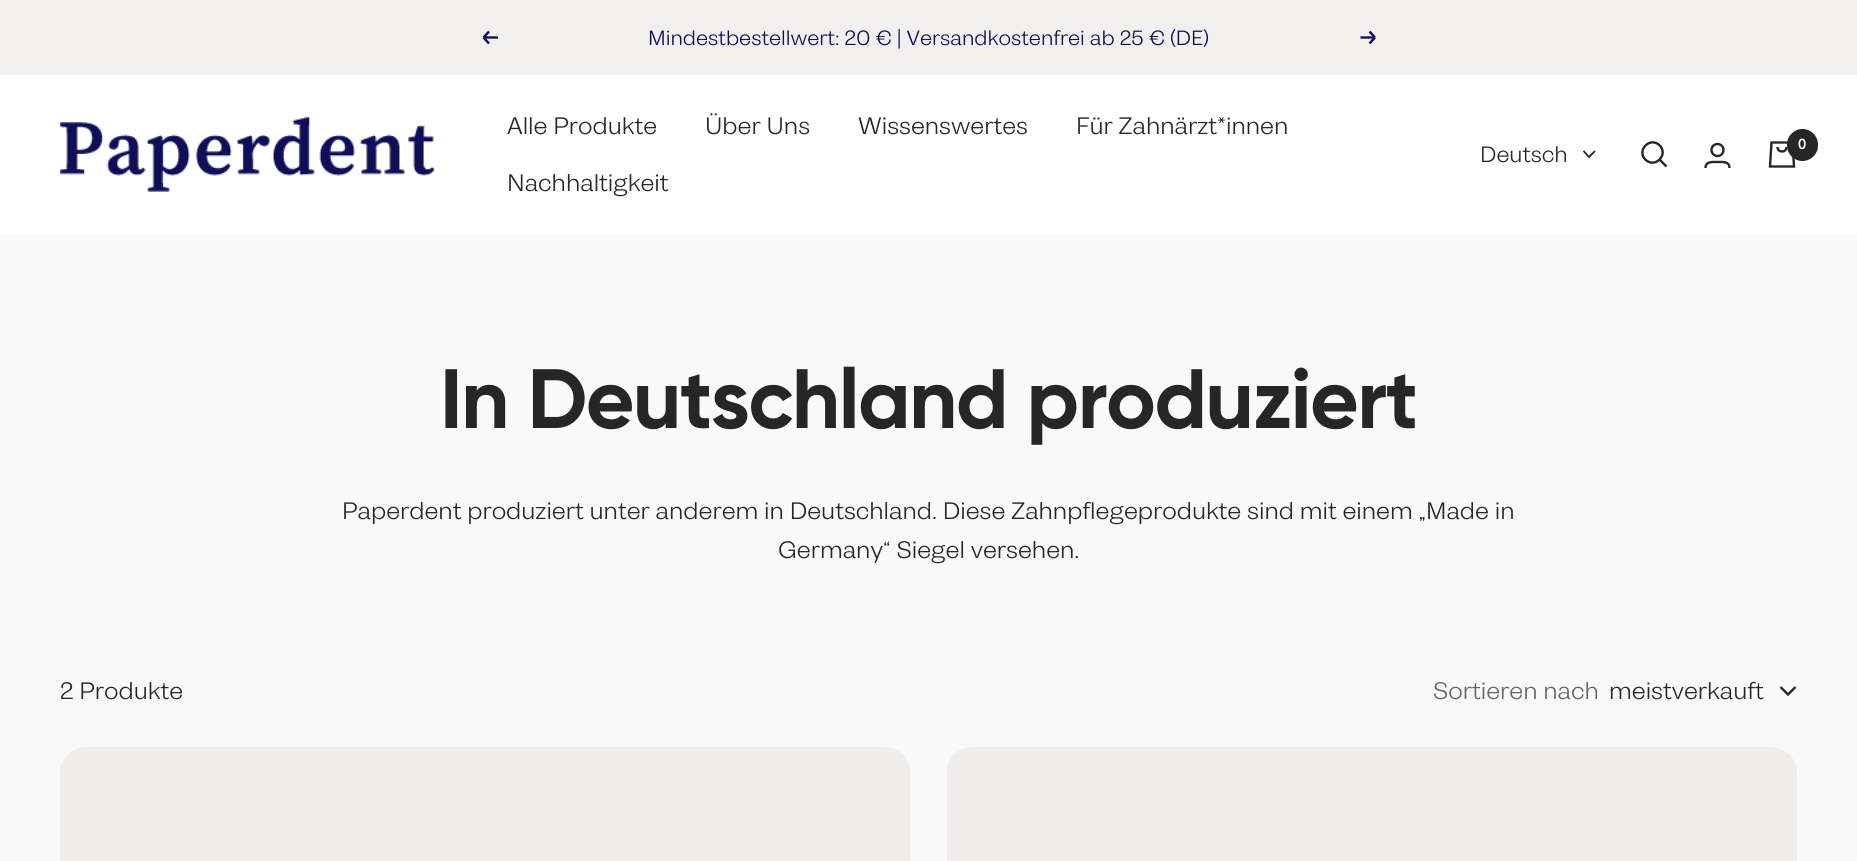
import math
import cairo


def use_color(cr, r, g, b):
  cr.set_source_rgb(r / 255, g / 255, b / 255)

def text(cr, x, y, s, family, size, color, bold=False, italic=False):
  cr.select_font_face(family, cairo.FONT_SLANT_ITALIC if italic else cairo.FONT_SLANT_NORMAL, cairo.FONT_WEIGHT_BOLD if bold else cairo.FONT_WEIGHT_NORMAL)
  cr.set_font_size(size)
  use_color(cr, *color)
  cr.move_to(x, y)
  cr.show_text(s)

def spaced_text(cr, x, y, s, letter, word):
  cr.move_to(x, y)
  for ch in s:
    cr.show_text(ch)
    cr.rel_move_to(letter + word * (ch == ' '), 0)

def box(cr, x, y, w, h, *color):
  use_color(cr, *color)
  cr.rectangle(x, y, w, h)
  cr.fill()

def round_rect(cr, x, y, w, h, r):
  cr.new_sub_path()
  for i, (u, v) in enumerate([(x + w - r, y + h - r), (x + r, y + h - r), (x + r, y + r), (x + w - r, y + r)]):
    cr.arc(u, v, r, i * math.pi / 2, (i + 1) * math.pi / 2)
  cr.close_path()

def picture(cr, path, x, y, w, h):
  cr.save()
  cr.set_source_surface(cairo.ImageSurface.create_from_png(path), x, y)
  cr.rectangle(x, y, w, h)
  cr.fill()
  cr.restore()

def draw(cr):
  use_color(cr, 249, 249, 249)
  cr.paint()
  box(cr, 0, 0, 1857, 75, 241, 240, 238)
  cr.new_path()
  cr.move_to(498, 37.5)
  cr.line_to(483.5, 37.5)
  cr.move_to(483.5, 37.5)
  cr.line_to(489, 43.5)
  cr.move_to(483.5, 37.5)
  cr.line_to(489, 31.5)
  use_color(cr, 16, 14, 87)
  cr.set_line_width(2.4)
  cr.stroke()
  cr.new_path()
  cr.move_to(1360.5, 37.5)
  cr.line_to(1375, 37.5)
  cr.move_to(1375, 37.5)
  cr.line_to(1369.5, 43.5)
  cr.move_to(1375, 37.5)
  cr.line_to(1369.5, 31.5)
  cr.stroke()
  box(cr, 0, 75, 1857, 159, 255, 255, 255)
  picture(cr, "img_01.png", 60, 117, 375, 75)
  cr.new_path()
  cr.move_to(1659.5, 159.5)
  cr.curve_to(1669, 150, 1655, 136, 1645.5, 145.5)
  cr.curve_to(1636, 155, 1650, 169, 1659.5, 159.5)
  cr.close_path()
  cr.move_to(1659.5, 159.5)
  cr.line_to(1666.5, 166.5)
  use_color(cr, 38, 38, 38)
  cr.stroke()
  cr.arc(1717.5, 150, 6, 0, 2 * math.pi)
  cr.stroke()
  cr.new_path()
  cr.move_to(1705.5, 168)
  cr.curve_to(1705.5, 161, 1713, 162, 1717.5, 162)
  cr.curve_to(1722, 162, 1729.5, 161, 1729.5, 168)
  cr.stroke()
  cr.new_path()
  cr.move_to(1771.5, 142.5)
  cr.line_to(1792.5, 142.5)
  cr.line_to(1794, 166.5)
  cr.line_to(1770, 166.5)
  cr.close_path()
  cr.move_to(1777.5, 147)
  cr.curve_to(1777.5, 153, 1786.5, 153, 1786.5, 147)
  cr.stroke()
  round_rect(cr, 1787, 129, 31, 32, 15.5)
  cr.fill()
  cr.new_path()
  cr.move_to(1583.5, 151)
  cr.line_to(1589, 157)
  cr.line_to(1595, 151)
  cr.set_line_width(1.8)
  cr.stroke()
  cr.new_path()
  cr.move_to(1780.5, 687)
  cr.line_to(1788, 694.5)
  cr.line_to(1795.5, 687)
  cr.set_line_width(2.4)
  cr.stroke()
  picture(cr, "img_02.png", 60, 747, 850, 114)
  picture(cr, "img_03.png", 947, 747, 850, 114)
  text(cr, 648, 45, "Mindestbestellwert: 20 € | Versandkostenfrei ab 25 € (DE)", "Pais", 19.5, (16, 14, 87))
  text(cr, 507, 134, "Alle Produkte", "Pais", 22.5, (38, 38, 38))
  text(cr, 705, 134, "Über Uns", "Pais", 22.5, (38, 38, 38))
  text(cr, 858, 134, "Wissenswertes", "Pais", 22.5, (38, 38, 38))
  text(cr, 1076, 134, "Für Zahnärzt*innen", "Pais", 22.5, (38, 38, 38))
  text(cr, 507, 191, "Nachhaltigkeit", "Pais", 22.5, (38, 38, 38))
  text(cr, 1798, 149, "0", "Avenir", 14, (255, 255, 255), bold=True)
  text(cr, 1480, 162, "Deutsch", "Pais", 21, (38, 38, 38))
  cr.select_font_face("Gilroy", cairo.FONT_SLANT_NORMAL, cairo.FONT_WEIGHT_BOLD)
  cr.set_font_size(84)
  spaced_text(cr, 440, 428, "In Deutschland produziert", -1.5, 0)
  text(cr, 342, 519, "Paperdent produziert unter anderem in Deutschland. Diese Zahnpflegeprodukte sind mit einem „Made in", "Pais", 22.5, (38, 38, 38))
  text(cr, 778, 558, "Germany“ Siegel versehen.", "Pais", 22.5, (38, 38, 38))
  text(cr, 60, 699, "2 Produkte", "Pais", 22.5, (38, 38, 38))
  text(cr, 1433, 699, "Sortieren nach", "Pais", 22.5, (101, 101, 101))
  text(cr, 1609, 699, "meistverkauft", "Pais", 22.5, (38, 38, 38))


surface = cairo.ImageSurface(cairo.FORMAT_RGB24, 1857, 861)
cr = cairo.Context(surface)
options = cairo.FontOptions()
options.set_hint_metrics(cairo.HINT_METRICS_OFF)
options.set_hint_style(cairo.HINT_STYLE_NONE)
cr.set_font_options(options)
cr.set_miter_limit(4)
draw(cr)
surface.write_to_png("out.png")
